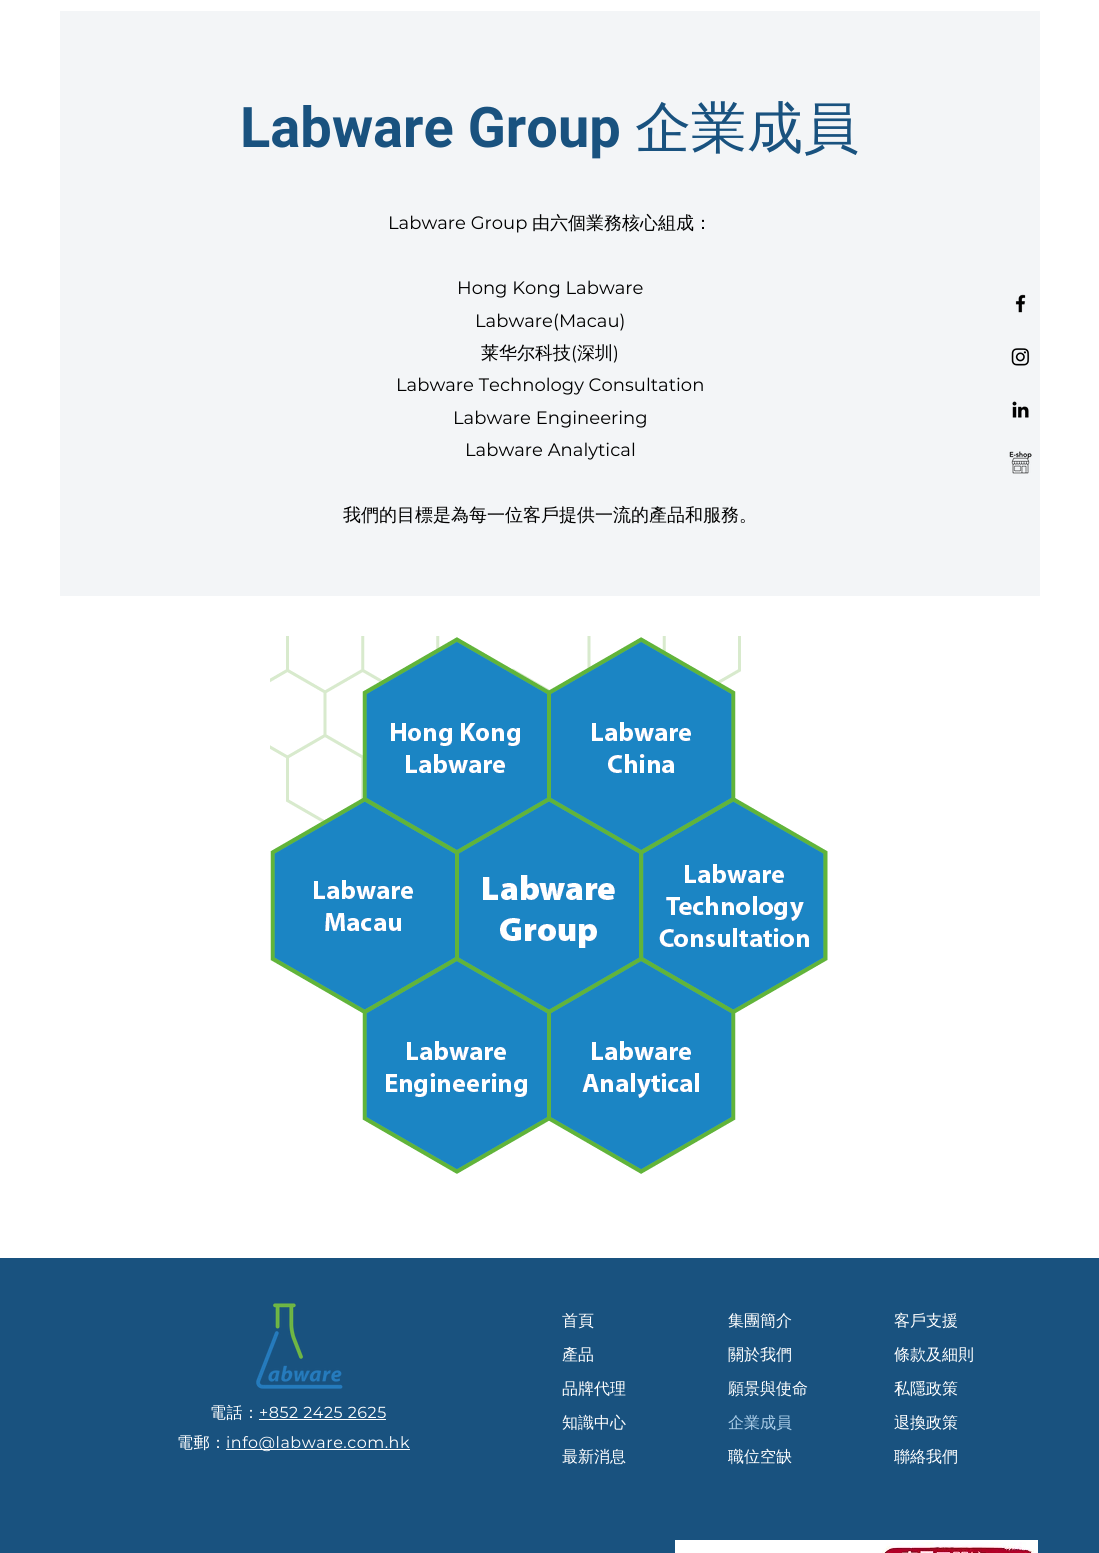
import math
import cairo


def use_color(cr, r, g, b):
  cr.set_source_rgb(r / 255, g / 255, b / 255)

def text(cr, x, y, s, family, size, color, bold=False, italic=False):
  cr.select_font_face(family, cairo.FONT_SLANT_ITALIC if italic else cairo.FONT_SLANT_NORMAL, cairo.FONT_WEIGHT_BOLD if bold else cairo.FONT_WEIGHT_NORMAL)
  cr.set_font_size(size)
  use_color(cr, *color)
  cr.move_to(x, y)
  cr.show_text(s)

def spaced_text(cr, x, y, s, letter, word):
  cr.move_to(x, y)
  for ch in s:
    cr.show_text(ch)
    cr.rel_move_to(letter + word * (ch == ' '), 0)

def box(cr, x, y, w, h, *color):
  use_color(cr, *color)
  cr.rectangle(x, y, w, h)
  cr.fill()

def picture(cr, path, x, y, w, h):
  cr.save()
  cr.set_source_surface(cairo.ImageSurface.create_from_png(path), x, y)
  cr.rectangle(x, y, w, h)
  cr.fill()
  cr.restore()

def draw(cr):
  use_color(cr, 255, 255, 255)
  cr.paint()
  box(cr, 60, 11, 980, 585, 243, 245, 247)
  picture(cr, "img_01.png", 270, 636, 558, 538)
  picture(cr, "img_02.png", 1015, 294, 11, 19)
  picture(cr, "img_03.png", 1011, 348, 19, 18)
  picture(cr, "img_04.png", 1012, 401, 17, 17)
  picture(cr, "img_05.png", 1009, 451, 23, 23)
  box(cr, 0, 1258, 1099, 295, 25, 82, 127)
  picture(cr, "img_06.png", 256, 1303, 87, 86)
  box(cr, 259, 1419, 127, 1, 255, 255, 255)
  box(cr, 226, 1449, 184, 1, 255, 255, 255)
  box(cr, 675, 1540, 363, 13, 255, 255, 255)
  picture(cr, "img_07.png", 882, 1542, 152, 11)
  text(cr, 240, 147, "Labware Group", "Roboto", 56, (25, 82, 127), bold=True)
  text(cr, 635, 147, "企業成員", "WenQuanYi Zen Hei Medium", 56, (25, 82, 127))
  text(cr, 388, 229, "Labware Group", "Montserrat", 18, (0, 0, 0))
  text(cr, 532, 229, "由六個業務核心組成：", "WenQuanYi Zen Hei Medium", 18, (0, 0, 0))
  text(cr, 457, 294, "Hong Kong Labware", "Montserrat", 18, (0, 0, 0))
  text(cr, 475, 327, "Labware(Macau)", "Montserrat", 18, (0, 0, 0))
  text(cr, 481, 359, "莱华尔科技", "WenQuanYi Zen Hei Medium", 18, (0, 0, 0))
  text(cr, 571, 359, "(", "Montserrat", 18, (0, 0, 0))
  text(cr, 577, 359, "深圳", "WenQuanYi Zen Hei Medium", 18, (0, 0, 0))
  text(cr, 613, 359, ")", "Montserrat", 18, (0, 0, 0))
  text(cr, 396, 391, "Labware Technology Consultation", "Montserrat", 18, (0, 0, 0))
  text(cr, 453, 424, "Labware Engineering", "Montserrat", 18, (0, 0, 0))
  text(cr, 465, 456, "Labware Analytical", "Montserrat", 18, (0, 0, 0))
  text(cr, 343, 521, "我們的目標是為每一位客戶提供一流的產品和服務。", "WenQuanYi Zen Hei Medium", 18, (0, 0, 0))
  cr.set_font_size(16)
  use_color(cr, 255, 255, 255)
  spaced_text(cr, 210, 1418, "電話：", 0.5, 0)
  cr.select_font_face("Montserrat")
  spaced_text(cr, 259, 1418, "+852 2425 2625", 0.5, 0)
  cr.select_font_face("WenQuanYi Zen Hei Medium")
  spaced_text(cr, 177, 1448, "電郵：", 0.5, 0)
  cr.select_font_face("Montserrat")
  spaced_text(cr, 226, 1448, "info@labware.com.hk", 0.5, 0)
  text(cr, 562, 1326, "首頁", "WenQuanYi Zen Hei Medium", 16, (255, 255, 255))
  text(cr, 562, 1360, "產品", "WenQuanYi Zen Hei Medium", 16, (255, 255, 255))
  text(cr, 562, 1394, "品牌代理", "WenQuanYi Zen Hei Medium", 16, (255, 255, 255))
  text(cr, 562, 1428, "知識中心", "WenQuanYi Zen Hei Medium", 16, (255, 255, 255))
  text(cr, 562, 1462, "最新消息", "WenQuanYi Zen Hei Medium", 16, (255, 255, 255))
  text(cr, 728, 1326, "集團簡介", "WenQuanYi Zen Hei Medium", 16, (255, 255, 255))
  text(cr, 728, 1360, "關於我們", "WenQuanYi Zen Hei Medium", 16, (255, 255, 255))
  text(cr, 728, 1394, "願景與使命", "WenQuanYi Zen Hei Medium", 16, (255, 255, 255))
  text(cr, 728, 1428, "企業成員", "WenQuanYi Zen Hei Medium", 16, (171, 206, 233))
  text(cr, 728, 1462, "職位空缺", "WenQuanYi Zen Hei Medium", 16, (255, 255, 255))
  text(cr, 894, 1326, "客戶支援", "WenQuanYi Zen Hei Medium", 16, (255, 255, 255))
  text(cr, 894, 1360, "條款及細則", "WenQuanYi Zen Hei Medium", 16, (255, 255, 255))
  text(cr, 894, 1394, "私隱政策", "WenQuanYi Zen Hei Medium", 16, (255, 255, 255))
  text(cr, 894, 1428, "退換政策", "WenQuanYi Zen Hei Medium", 16, (255, 255, 255))
  text(cr, 894, 1462, "聯絡我們", "WenQuanYi Zen Hei Medium", 16, (255, 255, 255))


surface = cairo.ImageSurface(cairo.FORMAT_RGB24, 1099, 1553)
cr = cairo.Context(surface)
options = cairo.FontOptions()
options.set_hint_metrics(cairo.HINT_METRICS_OFF)
options.set_hint_style(cairo.HINT_STYLE_NONE)
cr.set_font_options(options)
cr.set_miter_limit(4)
draw(cr)
surface.write_to_png("out.png")
